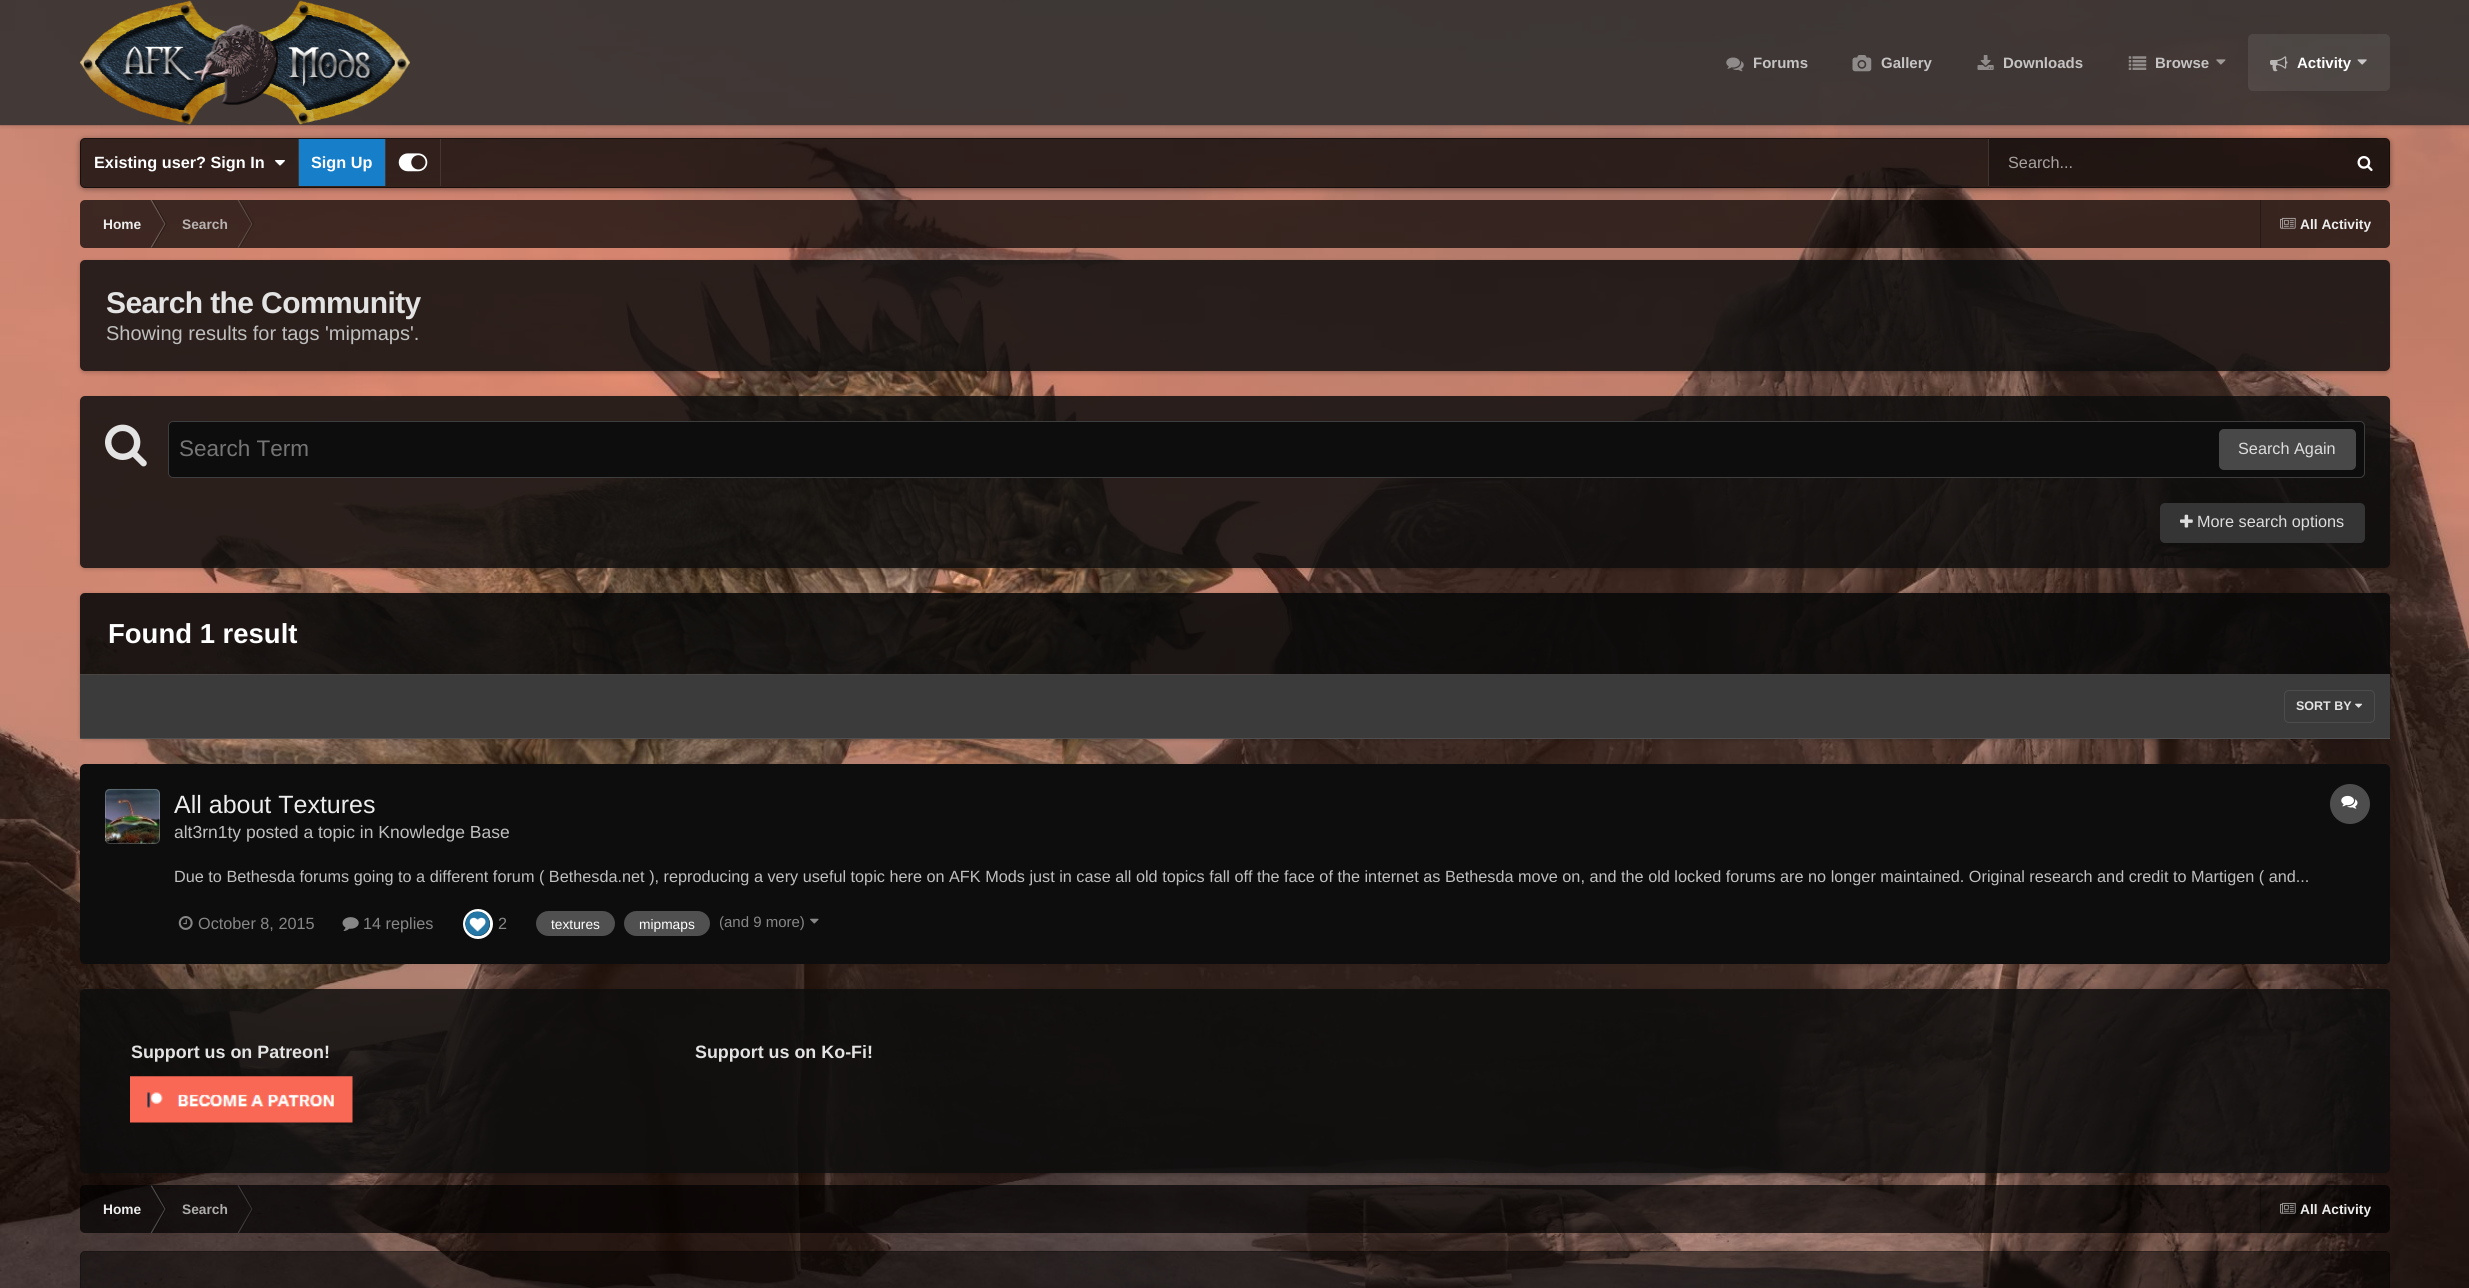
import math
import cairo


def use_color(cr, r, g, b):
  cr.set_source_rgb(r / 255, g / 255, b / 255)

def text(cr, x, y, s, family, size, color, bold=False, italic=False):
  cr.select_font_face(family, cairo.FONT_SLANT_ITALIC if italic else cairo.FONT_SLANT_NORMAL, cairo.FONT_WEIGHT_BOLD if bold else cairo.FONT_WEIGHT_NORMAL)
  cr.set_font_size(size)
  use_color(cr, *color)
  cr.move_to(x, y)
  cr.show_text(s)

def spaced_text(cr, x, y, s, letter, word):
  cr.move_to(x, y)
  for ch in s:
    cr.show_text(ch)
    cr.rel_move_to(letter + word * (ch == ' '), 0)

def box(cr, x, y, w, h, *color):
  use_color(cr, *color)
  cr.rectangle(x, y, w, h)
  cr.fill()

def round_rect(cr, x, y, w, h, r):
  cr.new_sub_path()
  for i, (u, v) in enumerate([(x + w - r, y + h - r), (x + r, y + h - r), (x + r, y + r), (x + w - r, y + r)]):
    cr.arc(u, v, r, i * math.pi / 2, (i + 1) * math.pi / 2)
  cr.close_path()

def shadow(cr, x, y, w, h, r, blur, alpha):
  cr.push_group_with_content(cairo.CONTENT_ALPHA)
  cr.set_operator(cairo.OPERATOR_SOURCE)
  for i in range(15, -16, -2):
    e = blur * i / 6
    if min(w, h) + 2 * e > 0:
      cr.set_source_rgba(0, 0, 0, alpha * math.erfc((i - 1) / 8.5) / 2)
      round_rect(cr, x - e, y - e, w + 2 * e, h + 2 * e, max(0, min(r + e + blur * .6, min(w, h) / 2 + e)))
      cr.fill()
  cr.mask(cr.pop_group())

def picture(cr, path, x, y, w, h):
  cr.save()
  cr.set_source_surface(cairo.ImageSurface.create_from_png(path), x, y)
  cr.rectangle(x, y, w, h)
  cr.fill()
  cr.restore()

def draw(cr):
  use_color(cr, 255, 255, 255)
  cr.paint()
  picture(cr, "img_01.png", 0, 0, 2469, 1288)
  cr.set_source_rgba(0, 0, 0, 0.1)
  cr.rectangle(0, 125, 2469, 1)
  cr.fill()
  cr.save()
  cr.rectangle(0, 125, 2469, 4)
  cr.clip()
  use_color(cr, 0, 0, 0)
  shadow(cr, 0, 1, 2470, 125, 0, 2.5, 0.15)
  cr.restore()
  cr.set_source_rgba(0.173, 0.173, 0.173, 0.85)
  cr.rectangle(0, 0, 2469, 125)
  cr.fill()
  picture(cr, "img_02.png", 80, 0, 330, 125)
  picture(cr, "img_03.png", 1726, 57, 18, 15)
  picture(cr, "img_04.png", 1852, 55, 20, 17)
  picture(cr, "img_05.png", 1977, 55, 17, 15)
  picture(cr, "img_06.png", 2128, 56, 19, 14)
  picture(cr, "img_07.png", 2216, 59, 10, 6)
  cr.set_source_rgba(1, 1, 1, 0.08)
  round_rect(cr, 2248, 34, 142, 57, 5)
  cr.fill()
  picture(cr, "img_08.png", 2270, 56, 18, 16)
  picture(cr, "img_09.png", 2357, 59, 10, 6)
  cr.save()
  cr.set_fill_rule(cairo.FILL_RULE_EVEN_ODD)
  cr.new_path()
  cr.move_to(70, 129)
  cr.line_to(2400, 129)
  cr.line_to(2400, 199)
  cr.line_to(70, 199)
  cr.close_path()
  cr.move_to(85, 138)
  cr.line_to(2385, 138)
  cr.curve_to(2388, 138, 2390, 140, 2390, 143)
  cr.line_to(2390, 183)
  cr.curve_to(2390, 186, 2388, 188, 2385, 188)
  cr.line_to(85, 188)
  cr.curve_to(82, 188, 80, 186, 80, 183)
  cr.line_to(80, 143)
  cr.curve_to(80, 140, 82, 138, 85, 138)
  cr.close_path()
  cr.clip()
  use_color(cr, 0, 0, 0)
  shadow(cr, 80, 139, 2310, 50, 5, 3, 0.4)
  cr.restore()
  cr.set_source_rgba(0, 0, 0, 0.75)
  round_rect(cr, 80, 138, 2310, 50, 5)
  cr.fill()
  round_rect(cr, 80.5, 138.5, 2309, 49, 4.5)
  cr.set_source_rgba(0, 0, 0, 0.5)
  cr.set_line_width(1)
  cr.stroke()
  box(cr, 298, 139, 1, 47, 70, 55, 51)
  picture(cr, "img_10.png", 275, 160, 10, 6)
  cr.set_source_rgba(1, 1, 1, 0.1)
  cr.rectangle(385, 139, 1, 47)
  cr.fill()
  box(cr, 299, 139, 86, 47, 23, 126, 201)
  box(cr, 440, 139, 1, 47, 70, 54, 51)
  picture(cr, "img_11.png", 398, 153, 30, 19)
  cr.set_source_rgba(1, 1, 1, 0.1)
  cr.rectangle(1988, 139, 1, 47)
  cr.fill()
  cr.set_source_rgba(0, 0, 0, 0.3)
  cr.new_path()
  cr.move_to(1989, 139)
  cr.line_to(2384, 139)
  cr.curve_to(2387, 139, 2389, 141, 2389, 144)
  cr.line_to(2389, 181)
  cr.curve_to(2389, 184, 2387, 186, 2384, 186)
  cr.line_to(1989, 186)
  cr.close_path()
  cr.fill()
  picture(cr, "img_12.png", 2357, 156, 16, 16)
  cr.set_source_rgba(0, 0, 0, 0.7)
  round_rect(cr, 80, 200, 2310, 48, 5)
  cr.fill()
  use_color(cr, 110, 93, 89)
  cr.new_path()
  cr.move_to(150.5, 200)
  cr.line_to(152, 200)
  cr.line_to(165.5, 224)
  cr.line_to(164.5, 224)
  cr.close_path()
  cr.fill()
  cr.set_source_rgba(0, 0, 0, 0.3)
  cr.new_path()
  cr.move_to(152, 200)
  cr.line_to(153, 200)
  cr.line_to(167, 224)
  cr.line_to(165.5, 224)
  cr.close_path()
  cr.fill()
  use_color(cr, 110, 94, 89)
  cr.new_path()
  cr.move_to(150.5, 247.5)
  cr.line_to(152, 247.5)
  cr.line_to(165.5, 224)
  cr.line_to(164.5, 224)
  cr.close_path()
  cr.fill()
  cr.set_source_rgba(0, 0, 0, 0.3)
  cr.new_path()
  cr.move_to(152, 247.5)
  cr.line_to(153, 247.5)
  cr.line_to(167, 224)
  cr.line_to(165.5, 224)
  cr.close_path()
  cr.fill()
  use_color(cr, 95, 77, 73)
  cr.new_path()
  cr.move_to(237.5, 200)
  cr.line_to(239, 200)
  cr.line_to(252.5, 224)
  cr.line_to(251.5, 224)
  cr.close_path()
  cr.fill()
  cr.set_source_rgba(0.075, 0.047, 0.039, 0.3)
  cr.new_path()
  cr.move_to(239, 200)
  cr.line_to(240, 200)
  cr.line_to(254, 224)
  cr.line_to(252.5, 224)
  cr.close_path()
  cr.fill()
  use_color(cr, 96, 77, 72)
  cr.new_path()
  cr.move_to(237.5, 247.5)
  cr.line_to(239, 247.5)
  cr.line_to(252.5, 224)
  cr.line_to(251.5, 224)
  cr.close_path()
  cr.fill()
  cr.set_source_rgba(0.075, 0.047, 0.039, 0.3)
  cr.new_path()
  cr.move_to(239, 247.5)
  cr.line_to(240, 247.5)
  cr.line_to(254, 224)
  cr.line_to(252.5, 224)
  cr.close_path()
  cr.fill()
  box(cr, 2260, 200, 1, 48, 39, 26, 22)
  picture(cr, "img_13.png", 2280, 217, 16, 12)
  cr.save()
  cr.set_fill_rule(cairo.FILL_RULE_EVEN_ODD)
  cr.new_path()
  cr.move_to(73, 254)
  cr.line_to(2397, 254)
  cr.line_to(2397, 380)
  cr.line_to(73, 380)
  cr.close_path()
  cr.move_to(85, 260)
  cr.line_to(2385, 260)
  cr.curve_to(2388, 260, 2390, 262, 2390, 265)
  cr.line_to(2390, 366)
  cr.curve_to(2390, 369, 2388, 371, 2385, 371)
  cr.line_to(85, 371)
  cr.curve_to(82, 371, 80, 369, 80, 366)
  cr.line_to(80, 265)
  cr.curve_to(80, 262, 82, 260, 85, 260)
  cr.close_path()
  cr.clip()
  use_color(cr, 0, 0, 0)
  shadow(cr, 80, 261, 2310, 112, 5, 2, 0.2)
  cr.restore()
  cr.set_source_rgba(0.051, 0.051, 0.051, 0.85)
  round_rect(cr, 80, 260, 2310, 111, 5)
  cr.fill()
  cr.save()
  cr.set_fill_rule(cairo.FILL_RULE_EVEN_ODD)
  cr.new_path()
  cr.move_to(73, 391)
  cr.line_to(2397, 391)
  cr.line_to(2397, 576)
  cr.line_to(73, 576)
  cr.close_path()
  cr.move_to(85, 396)
  cr.line_to(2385, 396)
  cr.curve_to(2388, 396, 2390, 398, 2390, 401)
  cr.line_to(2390, 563)
  cr.curve_to(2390, 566, 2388, 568, 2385, 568)
  cr.line_to(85, 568)
  cr.curve_to(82, 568, 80, 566, 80, 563)
  cr.line_to(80, 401)
  cr.curve_to(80, 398, 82, 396, 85, 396)
  cr.close_path()
  cr.clip()
  use_color(cr, 0, 0, 0)
  shadow(cr, 80, 398, 2310, 171, 5, 2, 0.2)
  cr.restore()
  round_rect(cr, 80, 396, 2310, 172, 5)
  cr.fill()
  picture(cr, "img_14.png", 105, 424, 42, 43)
  use_color(cr, 13, 13, 13)
  round_rect(cr, 168, 421, 2197, 57, 5)
  cr.fill()
  round_rect(cr, 168.5, 421.5, 2196, 56, 4.5)
  cr.set_source_rgba(0.529, 0.529, 0.529, 0.4)
  cr.stroke()
  use_color(cr, 72, 72, 72)
  round_rect(cr, 2219, 429, 137, 41, 5)
  cr.fill()
  use_color(cr, 53, 53, 53)
  round_rect(cr, 2160, 503, 205, 40, 5)
  cr.fill()
  picture(cr, "img_15.png", 2180, 514, 13, 14)
  cr.save()
  cr.set_fill_rule(cairo.FILL_RULE_EVEN_ODD)
  cr.new_path()
  cr.move_to(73, 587)
  cr.line_to(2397, 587)
  cr.line_to(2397, 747)
  cr.line_to(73, 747)
  cr.close_path()
  cr.move_to(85, 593)
  cr.line_to(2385, 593)
  cr.curve_to(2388, 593, 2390, 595, 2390, 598)
  cr.line_to(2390, 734)
  cr.curve_to(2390, 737, 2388, 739, 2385, 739)
  cr.line_to(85, 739)
  cr.curve_to(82, 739, 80, 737, 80, 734)
  cr.line_to(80, 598)
  cr.curve_to(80, 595, 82, 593, 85, 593)
  cr.close_path()
  cr.clip()
  use_color(cr, 0, 0, 0)
  shadow(cr, 80, 594, 2310, 146, 5, 2, 0.2)
  cr.restore()
  cr.set_source_rgba(0.051, 0.051, 0.051, 0.85)
  round_rect(cr, 80, 593, 2310, 146, 5)
  cr.fill()
  cr.set_source_rgba(0, 0, 0, 0.3)
  cr.new_path()
  cr.move_to(85, 593)
  cr.line_to(2385, 593)
  cr.curve_to(2388, 593, 2390, 595, 2390, 598)
  cr.line_to(2390, 675)
  cr.line_to(80, 675)
  cr.line_to(80, 598)
  cr.curve_to(80, 595, 82, 593, 85, 593)
  cr.close_path()
  cr.fill()
  cr.set_source_rgba(1, 1, 1, 0.2)
  cr.rectangle(80, 674, 2310, 1)
  cr.fill()
  box(cr, 80, 675, 2310, 63, 59, 59, 59)
  box(cr, 80, 738, 2310, 1, 79, 79, 79)
  picture(cr, "img_16.png", 2355, 703, 8, 5)
  round_rect(cr, 2284.5, 690.5, 90, 32, 4.5)
  use_color(cr, 76, 76, 76)
  cr.stroke()
  use_color(cr, 0, 0, 0)
  shadow(cr, 80, 766, 2310, 200, 5, 3, 0.05)
  use_color(cr, 13, 13, 13)
  round_rect(cr, 80, 764, 2310, 200, 5)
  cr.fill()
  picture(cr, "img_17.png", 105, 788, 55, 56)
  round_rect(cr, 105.5, 789.5, 54, 54, 4.5)
  cr.set_source_rgba(0.749, 0.749, 0.749, 0.3)
  cr.stroke()
  use_color(cr, 77, 77, 77)
  cr.arc(2350, 804, 20, 0, 2 * math.pi)
  cr.fill()
  picture(cr, "img_18.png", 2341, 795, 17, 14)
  picture(cr, "img_19.png", 178, 916, 15, 14)
  picture(cr, "img_20.png", 342, 917, 17, 14)
  cr.arc(478, 924, 13.5, 0, 2 * math.pi)
  use_color(cr, 255, 255, 255)
  cr.set_line_width(3)
  cr.stroke()
  picture(cr, "img_21.png", 465, 911, 25, 26)
  use_color(cr, 80, 80, 80)
  round_rect(cr, 536, 911, 79, 25, 12.5)
  cr.fill()
  round_rect(cr, 624, 911, 86, 25, 12.5)
  cr.fill()
  picture(cr, "img_22.png", 810, 918, 9, 6)
  cr.save()
  cr.set_fill_rule(cairo.FILL_RULE_EVEN_ODD)
  cr.new_path()
  cr.move_to(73, 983)
  cr.line_to(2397, 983)
  cr.line_to(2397, 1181)
  cr.line_to(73, 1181)
  cr.close_path()
  cr.move_to(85, 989)
  cr.line_to(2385, 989)
  cr.curve_to(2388, 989, 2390, 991, 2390, 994)
  cr.line_to(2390, 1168)
  cr.curve_to(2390, 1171, 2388, 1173, 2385, 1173)
  cr.line_to(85, 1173)
  cr.curve_to(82, 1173, 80, 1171, 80, 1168)
  cr.line_to(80, 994)
  cr.curve_to(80, 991, 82, 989, 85, 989)
  cr.close_path()
  cr.clip()
  use_color(cr, 0, 0, 0)
  shadow(cr, 80, 990, 2310, 184, 5, 2, 0.2)
  cr.restore()
  cr.set_source_rgba(0.051, 0.051, 0.051, 0.85)
  round_rect(cr, 80, 989, 2310, 184, 5)
  cr.fill()
  picture(cr, "img_23.png", 130, 1076, 223, 47)
  cr.set_source_rgba(0, 0, 0, 0.7)
  round_rect(cr, 80, 1185, 2310, 48, 5)
  cr.fill()
  cr.set_source_rgba(1, 1, 1, 0.25)
  cr.new_path()
  cr.move_to(150.5, 1185.5)
  cr.line_to(152, 1185.5)
  cr.line_to(165.5, 1209)
  cr.line_to(164.5, 1209)
  cr.close_path()
  cr.fill()
  cr.set_source_rgba(0, 0, 0, 0.3)
  cr.new_path()
  cr.move_to(152, 1185.5)
  cr.line_to(153, 1185.5)
  cr.line_to(167, 1209)
  cr.line_to(165.5, 1209)
  cr.close_path()
  cr.fill()
  use_color(cr, 80, 77, 76)
  cr.new_path()
  cr.move_to(150.5, 1233)
  cr.line_to(152, 1233)
  cr.line_to(165.5, 1209)
  cr.line_to(164.5, 1209)
  cr.close_path()
  cr.fill()
  cr.set_source_rgba(0, 0, 0, 0.3)
  cr.new_path()
  cr.move_to(152, 1233)
  cr.line_to(153, 1233)
  cr.line_to(167, 1209)
  cr.line_to(165.5, 1209)
  cr.close_path()
  cr.fill()
  use_color(cr, 63, 59, 59)
  cr.new_path()
  cr.move_to(237.5, 1185.5)
  cr.line_to(239, 1185.5)
  cr.line_to(252.5, 1209)
  cr.line_to(251.5, 1209)
  cr.close_path()
  cr.fill()
  cr.set_source_rgba(0.027, 0.02, 0.02, 0.3)
  cr.new_path()
  cr.move_to(239, 1185.5)
  cr.line_to(240, 1185.5)
  cr.line_to(254, 1209)
  cr.line_to(252.5, 1209)
  cr.close_path()
  cr.fill()
  use_color(cr, 64, 60, 59)
  cr.new_path()
  cr.move_to(237.5, 1233)
  cr.line_to(239, 1233)
  cr.line_to(252.5, 1209)
  cr.line_to(251.5, 1209)
  cr.close_path()
  cr.fill()
  cr.set_source_rgba(0.027, 0.024, 0.02, 0.3)
  cr.new_path()
  cr.move_to(239, 1233)
  cr.line_to(240, 1233)
  cr.line_to(254, 1209)
  cr.line_to(252.5, 1209)
  cr.close_path()
  cr.fill()
  cr.set_source_rgba(0, 0, 0, 0.3)
  cr.rectangle(2260, 1185, 1, 48)
  cr.fill()
  picture(cr, "img_24.png", 2280, 1202, 16, 12)
  cr.set_source_rgba(0, 0, 0, 0.5)
  round_rect(cr, 80, 1251, 2310, 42, 5)
  cr.fill()
  round_rect(cr, 80.5, 1251.5, 2309, 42, 4.5)
  cr.set_source_rgba(0, 0, 0, 0.2)
  cr.set_line_width(1)
  cr.stroke()
  text(cr, 1753, 68, "Forums", "Liberation Sans", 15, (197, 195, 195), bold=True)
  text(cr, 1881, 68, "Gallery", "Liberation Sans", 15, (197, 195, 195), bold=True)
  text(cr, 2003, 68, "Downloads", "Liberation Sans", 15, (197, 195, 195), bold=True)
  text(cr, 2155, 68, "Browse", "Liberation Sans", 15, (197, 195, 195), bold=True)
  text(cr, 2297, 68, "Activity", "Liberation Sans", 15, (255, 255, 255), bold=True)
  text(cr, 94, 168, "Existing user? Sign In", "Liberation Sans", 16.25, (255, 255, 255), bold=True)
  text(cr, 311, 168, "Sign Up", "Liberation Sans", 16.25, (255, 255, 255), bold=True)
  text(cr, 2008, 168, "Search...", "Liberation Sans", 16.25, (166, 162, 160))
  text(cr, 103, 229, "Home", "Liberation Sans", 13.75, (237, 237, 237), bold=True)
  text(cr, 182, 229, "Search", "Liberation Sans", 13.75, (185, 178, 176), bold=True)
  text(cr, 2300, 229, "All Activity", "Liberation Sans", 13.75, (237, 237, 237), bold=True)
  cr.set_font_size(30)
  use_color(cr, 227, 227, 227)
  spaced_text(cr, 106, 313, "Search the Community", -0.6, 0)
  text(cr, 106, 340, "Showing results for tags 'mipmaps'.", "Liberation Sans", 20, (191, 191, 191))
  text(cr, 179, 456, "Search Term", "Liberation Sans", 22.5, (117, 117, 117))
  text(cr, 2238, 454, "Search Again", "Liberation Sans", 16.25, (221, 221, 221))
  text(cr, 2197, 527, "More search options", "Liberation Sans", 16.25, (221, 221, 221))
  text(cr, 108, 643, "Found 1 result", "Liberation Sans", 27.5, (255, 255, 255), bold=True)
  text(cr, 2296, 710, "SORT BY", "Liberation Sans", 12.5, (227, 227, 227), bold=True)
  text(cr, 174, 813, "All about Textures", "Liberation Sans", 25, (237, 237, 237))
  text(cr, 174, 838, "alt3rn1ty posted a topic in Knowledge Base", "Liberation Sans", 17.5, (191, 191, 191))
  text(cr, 174, 882, "Due to Bethesda forums going to a different forum ( Bethesda.net ), reproducing a very useful topic here on AFK Mods just in case all old topics fall off the face of the internet as Bethesda move on, and the old locked forums are no longer maintained. Original research and credit to Martigen ( and...", "Liberation Sans", 16.25, (191, 191, 191))
  text(cr, 198, 929, "October 8, 2015", "Liberation Sans", 16.25, (135, 135, 135))
  text(cr, 363, 929, "14 replies", "Liberation Sans", 16.25, (135, 135, 135))
  text(cr, 498, 929, "2", "Liberation Sans", 16.25, (135, 135, 135))
  text(cr, 551, 929, "textures", "Liberation Sans", 13.75, (255, 255, 255))
  text(cr, 639, 929, "mipmaps", "Liberation Sans", 13.75, (255, 255, 255))
  text(cr, 719, 927, "(and 9 more)", "Liberation Sans", 15, (135, 135, 135))
  text(cr, 131, 1058, "Support us on Patreon!", "Liberation Sans", 17.9, (227, 227, 227), bold=True)
  text(cr, 695, 1058, "Support us on Ko-Fi!", "Liberation Sans", 17.9, (227, 227, 227), bold=True)
  text(cr, 103, 1214, "Home", "Liberation Sans", 13.75, (237, 237, 237), bold=True)
  text(cr, 182, 1214, "Search", "Liberation Sans", 13.75, (173, 171, 171), bold=True)
  text(cr, 2300, 1214, "All Activity", "Liberation Sans", 13.75, (237, 237, 237), bold=True)


surface = cairo.ImageSurface(cairo.FORMAT_RGB24, 2469, 1288)
cr = cairo.Context(surface)
options = cairo.FontOptions()
options.set_hint_metrics(cairo.HINT_METRICS_OFF)
options.set_hint_style(cairo.HINT_STYLE_NONE)
cr.set_font_options(options)
cr.set_miter_limit(4)
draw(cr)
surface.write_to_png("out.png")
